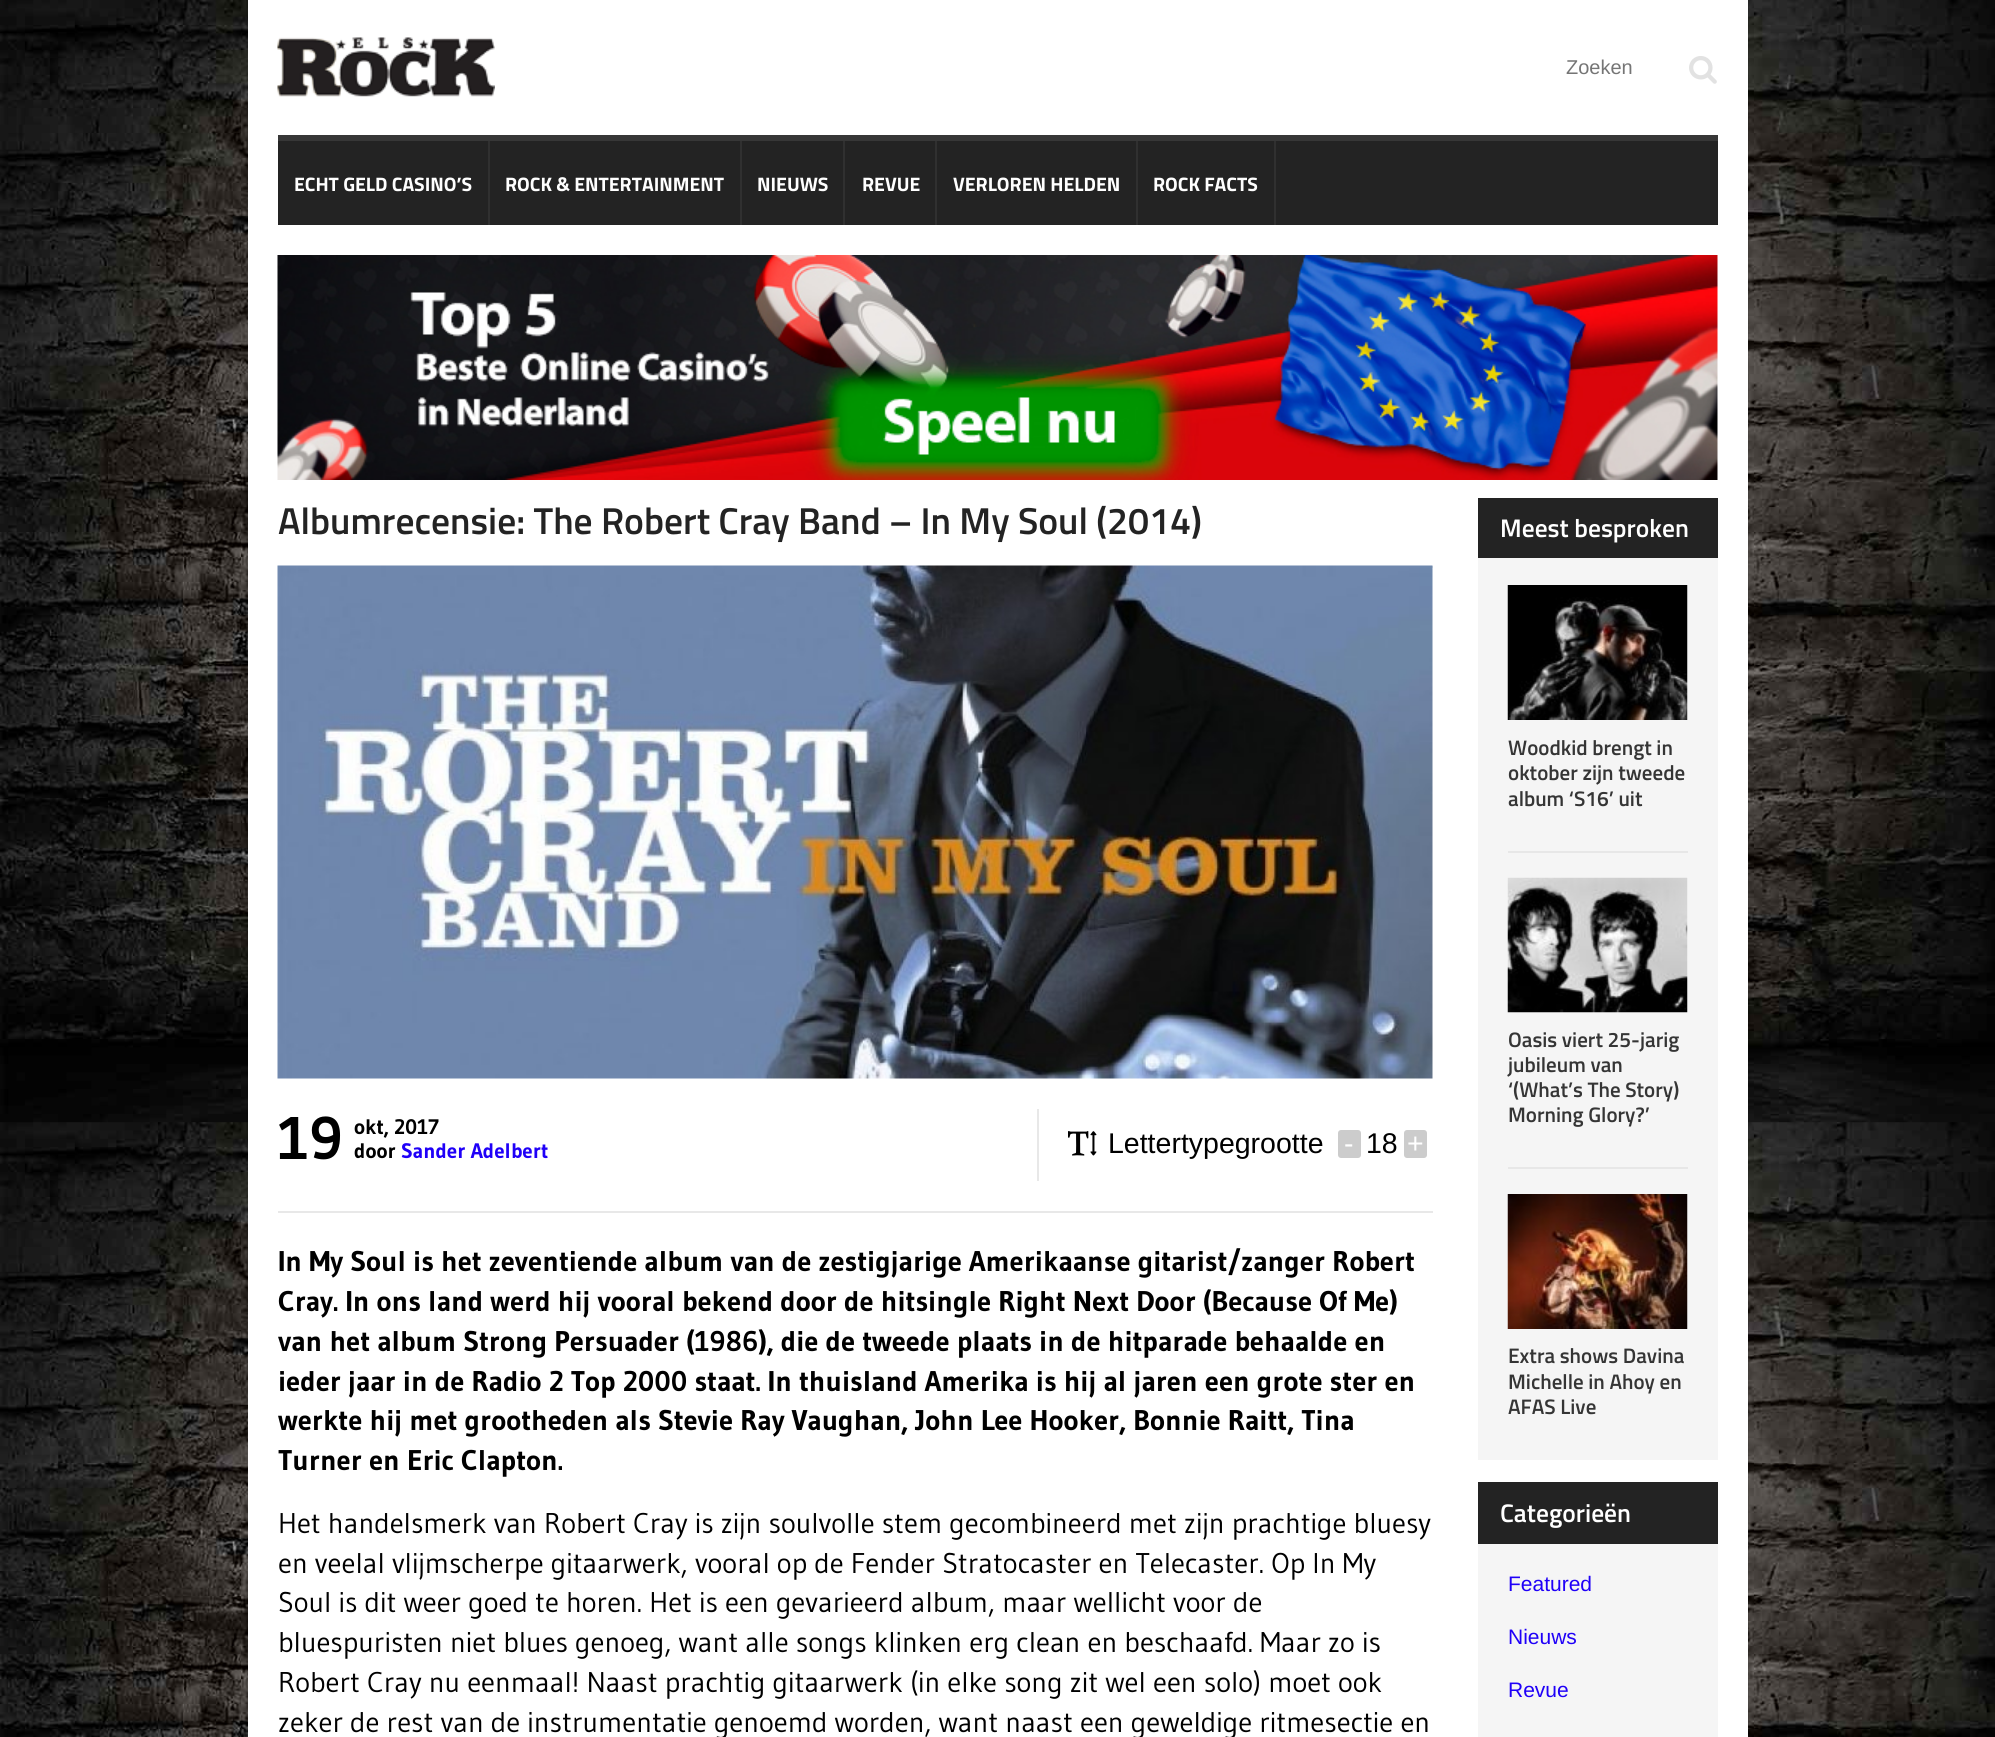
import math
import cairo


def use_color(cr, r, g, b):
  cr.set_source_rgb(r / 255, g / 255, b / 255)

def text(cr, x, y, s, family, size, color, bold=False, italic=False):
  cr.select_font_face(family, cairo.FONT_SLANT_ITALIC if italic else cairo.FONT_SLANT_NORMAL, cairo.FONT_WEIGHT_BOLD if bold else cairo.FONT_WEIGHT_NORMAL)
  cr.set_font_size(size)
  use_color(cr, *color)
  cr.move_to(x, y)
  cr.show_text(s)

def box(cr, x, y, w, h, *color):
  use_color(cr, *color)
  cr.rectangle(x, y, w, h)
  cr.fill()

def round_rect(cr, x, y, w, h, r):
  cr.new_sub_path()
  for i, (u, v) in enumerate([(x + w - r, y + h - r), (x + r, y + h - r), (x + r, y + r), (x + w - r, y + r)]):
    cr.arc(u, v, r, i * math.pi / 2, (i + 1) * math.pi / 2)
  cr.close_path()

def picture(cr, path, x, y, w, h):
  cr.save()
  cr.set_source_surface(cairo.ImageSurface.create_from_png(path), x, y)
  cr.rectangle(x, y, w, h)
  cr.fill()
  cr.restore()

def draw(cr):
  use_color(cr, 255, 255, 255)
  cr.paint()
  picture(cr, "img_01.png", 0, 0, 1995, 1737)
  cr.rectangle(247, 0, 1501, 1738)
  cr.set_source_rgba(0, 0, 0, 0.08)
  cr.stroke()
  box(cr, 248, 0, 1500, 1737, 255, 255, 255)
  picture(cr, "img_02.png", 277, 37, 218, 60)
  picture(cr, "img_03.png", 1689, 56, 28, 28)
  box(cr, 1276, 141, 442, 84, 35, 35, 35)
  box(cr, 1275, 135, 443, 6, 55, 55, 55)
  box(cr, 278, 141, 210, 84, 35, 35, 35)
  box(cr, 278, 135, 997, 6, 55, 55, 55)
  box(cr, 488, 141, 2, 84, 48, 48, 48)
  box(cr, 490, 141, 250, 84, 35, 35, 35)
  box(cr, 740, 141, 2, 84, 48, 48, 48)
  box(cr, 742, 141, 101, 84, 35, 35, 35)
  box(cr, 843, 141, 2, 84, 48, 48, 48)
  box(cr, 845, 141, 90, 84, 35, 35, 35)
  box(cr, 935, 141, 2, 84, 48, 48, 48)
  box(cr, 937, 141, 199, 84, 35, 35, 35)
  box(cr, 1136, 141, 2, 84, 48, 48, 48)
  box(cr, 1138, 141, 136, 84, 35, 35, 35)
  box(cr, 1274, 141, 2, 84, 48, 48, 48)
  picture(cr, "img_04.png", 277, 255, 1441, 225)
  box(cr, 1432, 566, 1, 2, 232, 232, 232)
  box(cr, 278, 1211, 1155, 2, 232, 232, 232)
  picture(cr, "img_05.png", 277, 565, 1156, 514)
  box(cr, 1037, 1109, 2, 72, 232, 232, 232)
  picture(cr, "img_06.png", 1068, 1131, 29, 25)
  use_color(cr, 204, 204, 204)
  round_rect(cr, 1338, 1130, 23, 28, 3)
  cr.fill()
  round_rect(cr, 1404, 1130, 23, 28, 3)
  cr.fill()
  box(cr, 1478, 498, 240, 60, 35, 35, 35)
  box(cr, 1478, 558, 240, 902, 245, 245, 245)
  box(cr, 1508, 851, 180, 2, 231, 231, 231)
  picture(cr, "img_07.png", 1507, 585, 181, 135)
  box(cr, 1508, 1167, 180, 2, 231, 231, 231)
  picture(cr, "img_08.png", 1507, 877, 181, 136)
  picture(cr, "img_09.png", 1507, 1194, 181, 135)
  box(cr, 1478, 1482, 240, 62, 35, 35, 35)
  box(cr, 1478, 1544, 240, 193, 245, 245, 245)
  text(cr, 1566, 74, "Zoeken", "Liberation Sans", 20, (117, 117, 117))
  text(cr, 294, 191, "ECHT GELD CASINO’S", "Titillium Web", 19.5, (255, 255, 255), bold=True)
  text(cr, 505, 191, "ROCK & ENTERTAINMENT", "Titillium Web", 19.5, (255, 255, 255), bold=True)
  text(cr, 757, 191, "NIEUWS", "Titillium Web", 19.5, (255, 255, 255), bold=True)
  text(cr, 862, 191, "REVUE", "Titillium Web", 19.5, (255, 255, 255), bold=True)
  text(cr, 953, 191, "VERLOREN HELDEN", "Titillium Web", 19.5, (255, 255, 255), bold=True)
  text(cr, 1153, 191, "ROCK FACTS", "Titillium Web", 19.5, (255, 255, 255), bold=True)
  text(cr, 278, 534, "Albumrecensie: The Robert Cray Band – In My Soul (2014)", "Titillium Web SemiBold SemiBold", 37.5, (35, 35, 35))
  text(cr, 278, 1159, "19", "Gudea", 60, (0, 0, 0), bold=True)
  text(cr, 354, 1134, "okt, 2017", "Gudea", 21, (0, 0, 0), bold=True)
  text(cr, 354, 1158, "door", "Gudea", 21, (0, 0, 0), bold=True)
  text(cr, 401, 1158, "Sander Adelbert", "Gudea", 21, (31, 0, 248), bold=True)
  text(cr, 1108, 1153, "Lettertypegrootte", "Liberation Sans", 28.5, (0, 0, 0))
  text(cr, 1344, 1153, "-", "Liberation Sans", 28.5, (255, 255, 255))
  text(cr, 1366, 1153, "18", "Liberation Sans", 28.5, (0, 0, 0))
  text(cr, 1407, 1153, "+", "Liberation Sans", 28.5, (255, 255, 255))
  text(cr, 278, 1271, "In My Soul is het zeventiende album van de zestigjarige Amerikaanse gitarist/zanger Robert", "Gudea", 28.5, (0, 0, 0), bold=True)
  text(cr, 278, 1311, "Cray. In ons land werd hij vooral bekend door de hitsingle Right Next Door (Because Of Me)", "Gudea", 28.5, (0, 0, 0), bold=True)
  text(cr, 278, 1351, "van het album Strong Persuader (1986), die de tweede plaats in de hitparade behaalde en", "Gudea", 28.5, (0, 0, 0), bold=True)
  text(cr, 278, 1391, "ieder jaar in de Radio 2 Top 2000 staat. In thuisland Amerika is hij al jaren een grote ster en", "Gudea", 28.5, (0, 0, 0), bold=True)
  text(cr, 278, 1430, "werkte hij met grootheden als Stevie Ray Vaughan, John Lee Hooker, Bonnie Raitt, Tina", "Gudea", 28.5, (0, 0, 0), bold=True)
  text(cr, 278, 1470, "Turner en Eric Clapton.", "Gudea", 28.5, (0, 0, 0), bold=True)
  text(cr, 278, 1533, "Het handelsmerk van Robert Cray is zijn soulvolle stem gecombineerd met zijn prachtige bluesy", "Gudea", 28.5, (0, 0, 0))
  text(cr, 278, 1573, "en veelal vlijmscherpe gitaarwerk, vooral op de Fender Stratocaster en Telecaster. Op In My", "Gudea", 28.5, (0, 0, 0))
  text(cr, 278, 1612, "Soul is dit weer goed te horen. Het is een gevarieerd album, maar wellicht voor de", "Gudea", 28.5, (0, 0, 0))
  text(cr, 278, 1652, "bluespuristen niet blues genoeg, want alle songs klinken erg clean en beschaafd. Maar zo is", "Gudea", 28.5, (0, 0, 0))
  text(cr, 278, 1692, "Robert Cray nu eenmaal! Naast prachtig gitaarwerk (in elke song zit wel een solo) moet ook", "Gudea", 28.5, (0, 0, 0))
  text(cr, 278, 1732, "zeker de rest van de instrumentatie genoemd worden, want naast een geweldige ritmesectie en", "Gudea", 28.5, (0, 0, 0))
  text(cr, 1500, 537, "Meest besproken", "Titillium Web SemiBold SemiBold", 25.5, (255, 255, 255))
  text(cr, 1508, 755, "Woodkid brengt in", "Titillium Web SemiBold SemiBold", 21, (53, 53, 53))
  text(cr, 1508, 780, "oktober zijn tweede", "Titillium Web SemiBold SemiBold", 21, (53, 53, 53))
  text(cr, 1508, 806, "album ‘S16’ uit", "Titillium Web SemiBold SemiBold", 21, (53, 53, 53))
  text(cr, 1508, 1047, "Oasis viert 25-jarig", "Titillium Web SemiBold SemiBold", 21, (53, 53, 53))
  text(cr, 1508, 1072, "jubileum van", "Titillium Web SemiBold SemiBold", 21, (53, 53, 53))
  text(cr, 1508, 1097, "‘(What’s The Story)", "Titillium Web SemiBold SemiBold", 21, (53, 53, 53))
  text(cr, 1508, 1122, "Morning Glory?’", "Titillium Web SemiBold SemiBold", 21, (53, 53, 53))
  text(cr, 1508, 1363, "Extra shows Davina", "Titillium Web SemiBold SemiBold", 21, (53, 53, 53))
  text(cr, 1508, 1389, "Michelle in Ahoy en", "Titillium Web SemiBold SemiBold", 21, (53, 53, 53))
  text(cr, 1508, 1414, "AFAS Live", "Titillium Web SemiBold SemiBold", 21, (53, 53, 53))
  text(cr, 1500, 1522, "Categorieën", "Titillium Web SemiBold SemiBold", 25.5, (255, 255, 255))
  text(cr, 1508, 1591, "Featured", "Liberation Sans", 21, (31, 0, 248))
  text(cr, 1508, 1644, "Nieuws", "Liberation Sans", 21, (31, 0, 248))
  text(cr, 1508, 1697, "Revue", "Liberation Sans", 21, (31, 0, 248))


surface = cairo.ImageSurface(cairo.FORMAT_RGB24, 1995, 1737)
cr = cairo.Context(surface)
options = cairo.FontOptions()
options.set_hint_metrics(cairo.HINT_METRICS_OFF)
options.set_hint_style(cairo.HINT_STYLE_NONE)
cr.set_font_options(options)
cr.set_miter_limit(4)
draw(cr)
surface.write_to_png("out.png")
